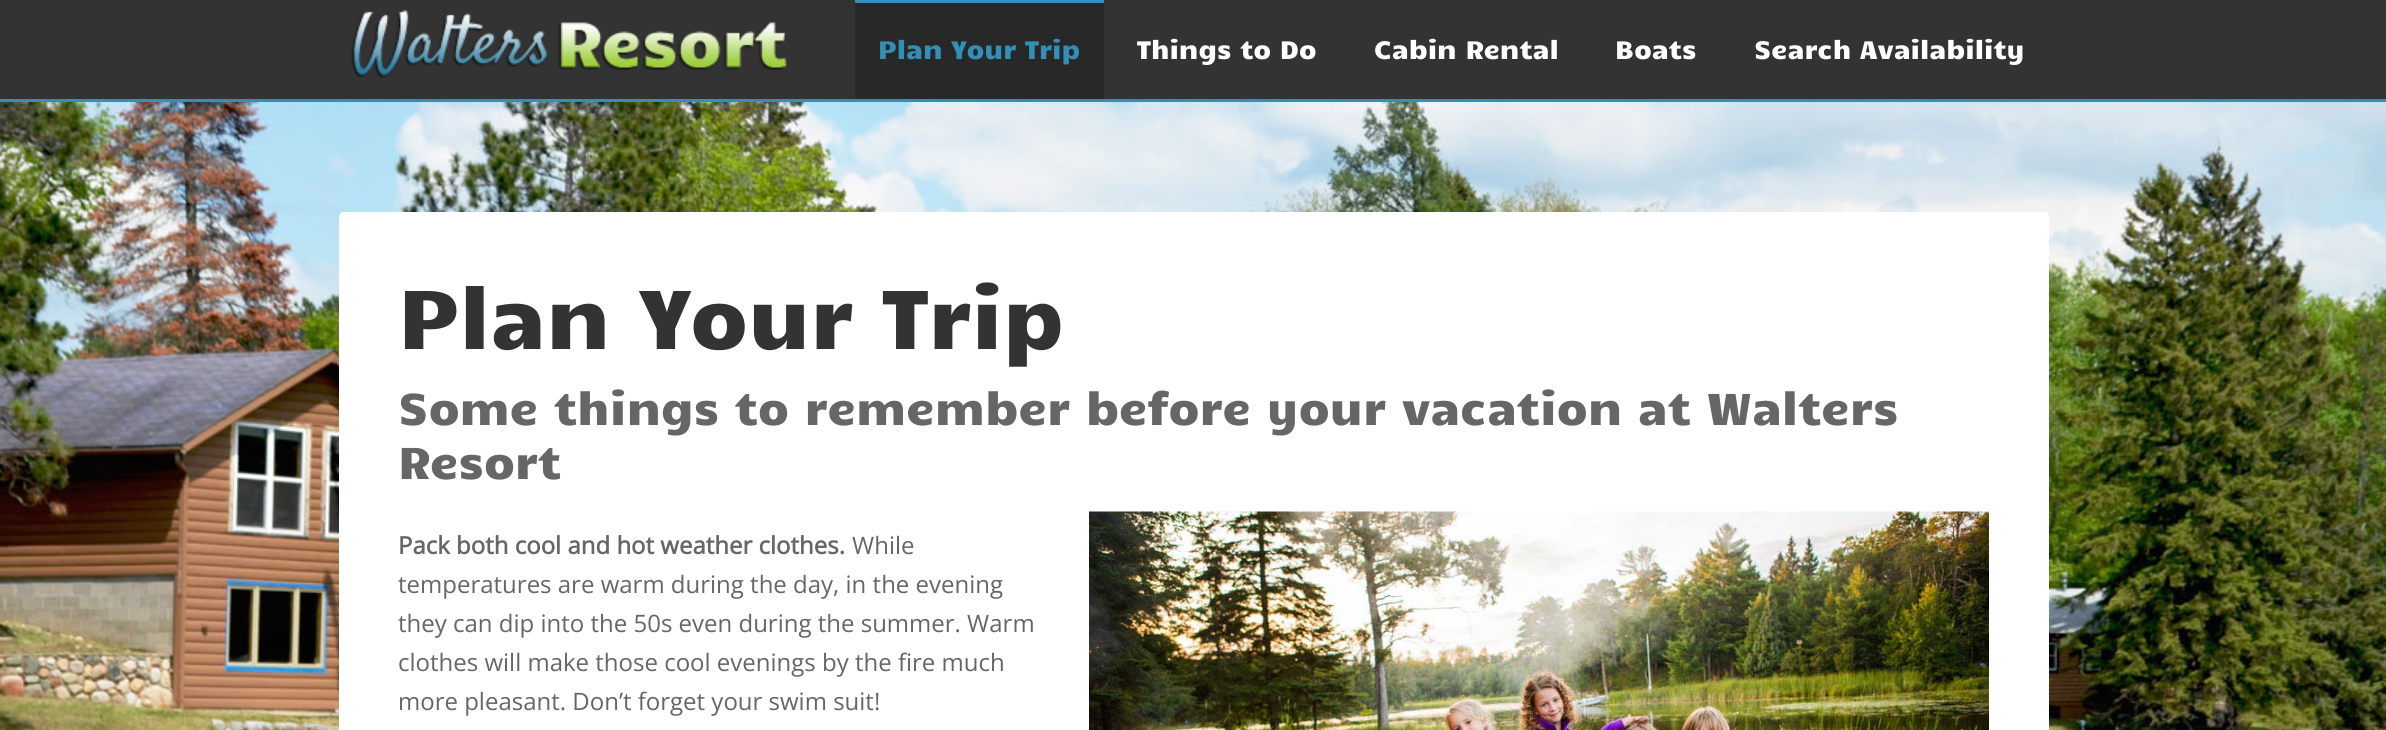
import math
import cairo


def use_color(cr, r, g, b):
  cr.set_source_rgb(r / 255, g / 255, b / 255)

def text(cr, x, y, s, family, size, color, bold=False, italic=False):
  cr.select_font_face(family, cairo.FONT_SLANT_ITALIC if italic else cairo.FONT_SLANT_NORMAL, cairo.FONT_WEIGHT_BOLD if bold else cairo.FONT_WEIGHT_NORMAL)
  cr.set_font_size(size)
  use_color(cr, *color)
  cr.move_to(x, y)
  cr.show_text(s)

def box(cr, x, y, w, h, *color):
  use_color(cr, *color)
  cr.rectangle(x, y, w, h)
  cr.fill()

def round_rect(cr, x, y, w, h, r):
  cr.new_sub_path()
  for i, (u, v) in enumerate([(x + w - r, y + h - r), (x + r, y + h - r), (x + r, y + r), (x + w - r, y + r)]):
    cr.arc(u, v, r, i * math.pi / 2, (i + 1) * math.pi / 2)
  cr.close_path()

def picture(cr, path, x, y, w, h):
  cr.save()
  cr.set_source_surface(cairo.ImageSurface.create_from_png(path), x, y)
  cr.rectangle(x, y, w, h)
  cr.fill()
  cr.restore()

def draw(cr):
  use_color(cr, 255, 255, 255)
  cr.paint()
  box(cr, 0, 0, 2386, 99, 51, 51, 51)
  box(cr, 0, 99, 2386, 3, 51, 143, 184)
  picture(cr, "img_01.png", 351, 10, 436, 68)
  box(cr, 855, 3, 249, 96, 40, 40, 40)
  box(cr, 855, 0, 249, 3, 51, 143, 184)
  picture(cr, "img_02.png", 0, 102, 2386, 628)
  use_color(cr, 255, 255, 255)
  round_rect(cr, 339, 212, 1710, 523, 5)
  cr.fill()
  picture(cr, "img_03.png", 1089, 511, 900, 219)
  text(cr, 878, 59, "Plan Your Trip", "Candal", 25.5, (51, 143, 184))
  text(cr, 1137, 59, "Things to Do", "Candal", 25.5, (255, 255, 255))
  text(cr, 1374, 59, "Cabin Rental", "Candal", 25.5, (255, 255, 255))
  text(cr, 1615, 59, "Boats", "Candal", 25.5, (255, 255, 255))
  text(cr, 1754, 59, "Search Availability", "Candal", 25.5, (255, 255, 255))
  text(cr, 398, 349, "Plan Your Trip", "Candal", 84, (51, 51, 51))
  text(cr, 398, 425, "Some things to remember before your vacation at Walters", "Candal", 45, (102, 102, 102))
  text(cr, 398, 479, "Resort", "Candal", 45, (102, 102, 102))
  text(cr, 398, 554, "Pack both cool and hot weather clothes.", "Open Sans", 24, (102, 102, 102), bold=True)
  text(cr, 852, 554, "While", "Open Sans", 24, (102, 102, 102))
  text(cr, 398, 593, "temperatures are warm during the day, in the evening", "Open Sans", 24, (102, 102, 102))
  text(cr, 398, 632, "they can dip into the 50s even during the summer. Warm", "Open Sans", 24, (102, 102, 102))
  text(cr, 398, 671, "clothes will make those cool evenings by the fire much", "Open Sans", 24, (102, 102, 102))
  text(cr, 398, 710, "more pleasant. Don’t forget your swim suit!", "Open Sans", 24, (102, 102, 102))


surface = cairo.ImageSurface(cairo.FORMAT_RGB24, 2386, 730)
cr = cairo.Context(surface)
options = cairo.FontOptions()
options.set_hint_metrics(cairo.HINT_METRICS_OFF)
options.set_hint_style(cairo.HINT_STYLE_NONE)
cr.set_font_options(options)
cr.set_miter_limit(4)
draw(cr)
surface.write_to_png("out.png")
